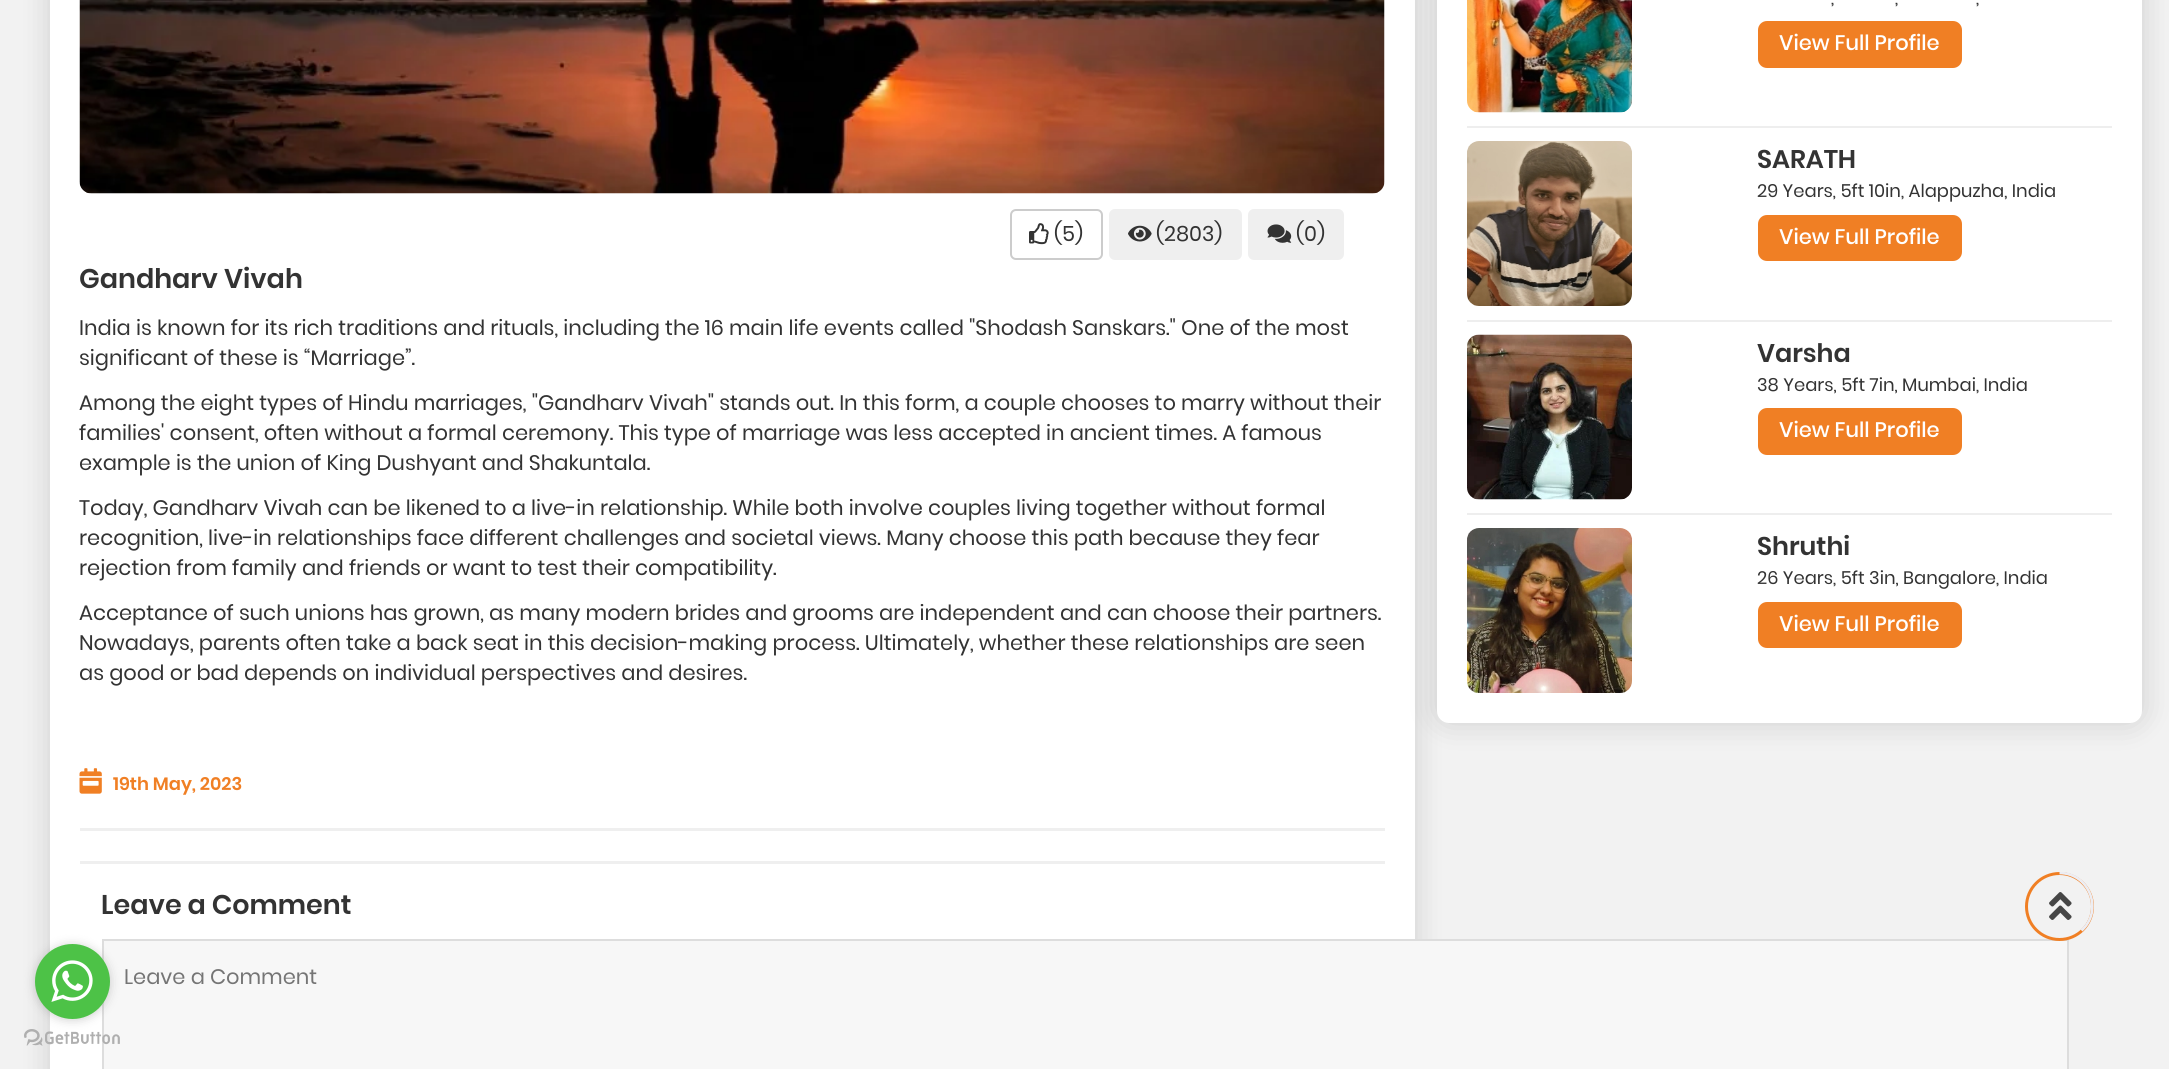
import math
import cairo


def use_color(cr, r, g, b):
  cr.set_source_rgb(r / 255, g / 255, b / 255)

def text(cr, x, y, s, family, size, color, bold=False, italic=False):
  cr.select_font_face(family, cairo.FONT_SLANT_ITALIC if italic else cairo.FONT_SLANT_NORMAL, cairo.FONT_WEIGHT_BOLD if bold else cairo.FONT_WEIGHT_NORMAL)
  cr.set_font_size(size)
  use_color(cr, *color)
  cr.move_to(x, y)
  cr.show_text(s)

def box(cr, x, y, w, h, *color):
  use_color(cr, *color)
  cr.rectangle(x, y, w, h)
  cr.fill()

def round_rect(cr, x, y, w, h, r):
  cr.new_sub_path()
  for i, (u, v) in enumerate([(x + w - r, y + h - r), (x + r, y + h - r), (x + r, y + r), (x + w - r, y + r)]):
    cr.arc(u, v, r, i * math.pi / 2, (i + 1) * math.pi / 2)
  cr.close_path()

def shadow(cr, x, y, w, h, r, blur, alpha):
  cr.push_group_with_content(cairo.CONTENT_ALPHA)
  cr.set_operator(cairo.OPERATOR_SOURCE)
  for i in range(15, -16, -2):
    e = blur * i / 6
    if min(w, h) + 2 * e > 0:
      cr.set_source_rgba(0, 0, 0, alpha * math.erfc((i - 1) / 8.5) / 2)
      round_rect(cr, x - e, y - e, w + 2 * e, h + 2 * e, max(0, min(r + e + blur * .6, min(w, h) / 2 + e)))
      cr.fill()
  cr.mask(cr.pop_group())

def picture(cr, path, x, y, w, h):
  cr.save()
  cr.set_source_surface(cairo.ImageSurface.create_from_png(path), x, y)
  cr.rectangle(x, y, w, h)
  cr.fill()
  cr.restore()

def draw(cr):
  use_color(cr, 242, 242, 242)
  cr.paint()
  use_color(cr, 0, 0, 0)
  shadow(cr, 50, -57, 1365, 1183, 12, 15, 0.15)
  box(cr, 50, 0, 1365, 1069, 255, 255, 255)
  use_color(cr, 247, 247, 247)
  cr.rectangle(103, 940, 1965, 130)
  cr.fill_preserve()
  use_color(cr, 221, 221, 221)
  cr.stroke()
  picture(cr, "img_02.png", 24, 1029, 96, 17)
  use_color(cr, 136, 136, 136)
  shadow(cr, 35, 945, 75, 75, 37.5, 5, 0.4)
  use_color(cr, 77, 194, 71)
  cr.arc(72.5, 981.5, 37.5, 0, 2 * math.pi)
  cr.fill()
  picture(cr, "img_01.png", 51, 960, 42, 42)
  picture(cr, "img_03.png", 79, 0, 1306, 194)
  round_rect(cr, 1011, 210, 91, 49, 5)
  use_color(cr, 204, 204, 204)
  cr.stroke()
  picture(cr, "img_04.png", 1029, 223, 20, 22)
  use_color(cr, 239, 239, 239)
  round_rect(cr, 1109, 209, 133, 51, 6)
  cr.fill()
  picture(cr, "img_05.png", 1128, 225, 24, 17)
  round_rect(cr, 1248, 209, 96, 51, 6)
  cr.fill()
  picture(cr, "img_06.png", 1267, 224, 25, 19)
  picture(cr, "img_07.png", 79, 768, 23, 26)
  box(cr, 80, 828, 1305, 3, 239, 239, 239)
  box(cr, 80, 861, 1305, 3, 239, 239, 239)
  use_color(cr, 0, 0, 0)
  shadow(cr, 1437, -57, 705, 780, 12, 15, 0.15)
  use_color(cr, 255, 255, 255)
  round_rect(cr, 1437, -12, 705, 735, 12)
  cr.fill()
  picture(cr, "img_08.png", 1467, 0, 165, 113)
  use_color(cr, 240, 127, 36)
  round_rect(cr, 1758, 21, 204, 47, 9)
  cr.fill()
  box(cr, 1467, 126, 645, 2, 238, 238, 238)
  picture(cr, "img_09.png", 1467, 141, 165, 165)
  use_color(cr, 240, 127, 36)
  round_rect(cr, 1758, 215, 204, 46, 9)
  cr.fill()
  box(cr, 1467, 320, 645, 2, 238, 238, 238)
  picture(cr, "img_10.png", 1467, 334, 165, 166)
  use_color(cr, 240, 127, 36)
  round_rect(cr, 1758, 408, 204, 47, 9)
  cr.fill()
  box(cr, 1467, 513, 645, 2, 238, 238, 238)
  picture(cr, "img_11.png", 1467, 528, 165, 165)
  use_color(cr, 240, 127, 36)
  round_rect(cr, 1758, 602, 204, 46, 9)
  cr.fill()
  cr.arc(2059.5, 906.5, 33, 0, 2 * math.pi)
  cr.set_line_width(3)
  cr.stroke()
  cr.save()
  cr.rectangle(2025, 872, 69, 69)
  cr.clip()
  cr.new_path()
  cr.move_to(2059.5, 873)
  cr.curve_to(2090, 873, 2103.5, 911, 2081.5, 930.5)
  use_color(cr, 236, 237, 243)
  cr.set_line_width(2.7)
  cr.stroke()
  cr.restore()
  picture(cr, "img_12.png", 2049, 892, 23, 28)
  text(cr, 1054, 241, "(5)", "Poppins", 21, (51, 51, 51))
  text(cr, 1156, 241, "(2803)", "Poppins", 21, (51, 51, 51))
  text(cr, 1296, 241, "(0)", "Poppins", 21, (51, 51, 51))
  text(cr, 79, 288, "Gandharv Vivah", "Poppins SemiBold", 27, (51, 51, 51))
  text(cr, 79, 335, "India is known for its rich traditions and rituals, including the 16 main life events called \"Shodash Sanskars.\" One of the most", "Poppins", 21, (51, 51, 51))
  text(cr, 79, 365, "significant of these is “Marriage”.", "Poppins", 21, (51, 51, 51))
  text(cr, 79, 410, "Among the eight types of Hindu marriages, \"Gandharv Vivah\" stands out. In this form, a couple chooses to marry without their", "Poppins", 21, (51, 51, 51))
  text(cr, 79, 440, "families' consent, often without a formal ceremony. This type of marriage was less accepted in ancient times. A famous", "Poppins", 21, (51, 51, 51))
  text(cr, 79, 470, "example is the union of King Dushyant and Shakuntala.", "Poppins", 21, (51, 51, 51))
  text(cr, 79, 515, "Today, Gandharv Vivah can be likened to a live-in relationship. While both involve couples living together without formal", "Poppins", 21, (51, 51, 51))
  text(cr, 79, 545, "recognition, live-in relationships face different challenges and societal views. Many choose this path because they fear", "Poppins", 21, (51, 51, 51))
  text(cr, 79, 575, "rejection from family and friends or want to test their compatibility.", "Poppins", 21, (51, 51, 51))
  text(cr, 79, 620, "Acceptance of such unions has grown, as many modern brides and grooms are independent and can choose their partners.", "Poppins", 21, (51, 51, 51))
  text(cr, 79, 650, "Nowadays, parents often take a back seat in this decision-making process. Ultimately, whether these relationships are seen", "Poppins", 21, (51, 51, 51))
  text(cr, 79, 680, "as good or bad depends on individual perspectives and desires.", "Poppins", 21, (51, 51, 51))
  text(cr, 113, 790, "19th May, 2023", "Poppins SemiBold", 18, (240, 127, 36))
  text(cr, 101, 914, "Leave a Comment", "Poppins SemiBold", 27, (51, 51, 51))
  text(cr, 124, 984, "Leave a Comment", "Poppins", 21, (117, 117, 117))
  text(cr, 1831, 4, ",", "Poppins", 18, (51, 51, 51))
  text(cr, 1895, 4, ",", "Poppins", 18, (51, 51, 51))
  text(cr, 1976, 4, ",", "Poppins", 18, (51, 51, 51))
  text(cr, 1779, 50, "View Full Profile", "Poppins Medium", 21, (255, 255, 255))
  text(cr, 1757, 168, "SARATH", "Poppins SemiBold", 25.5, (51, 51, 51))
  text(cr, 1757, 197, "29 Years, 5ft 10in, Alappuzha, India", "Poppins", 18, (51, 51, 51))
  text(cr, 1779, 244, "View Full Profile", "Poppins Medium", 21, (255, 255, 255))
  text(cr, 1757, 362, "Varsha", "Poppins SemiBold", 25.5, (51, 51, 51))
  text(cr, 1757, 391, "38 Years, 5ft 7in, Mumbai, India", "Poppins", 18, (51, 51, 51))
  text(cr, 1779, 437, "View Full Profile", "Poppins Medium", 21, (255, 255, 255))
  text(cr, 1757, 555, "Shruthi", "Poppins SemiBold", 25.5, (51, 51, 51))
  text(cr, 1757, 584, "26 Years, 5ft 3in, Bangalore, India", "Poppins", 18, (51, 51, 51))
  text(cr, 1779, 631, "View Full Profile", "Poppins Medium", 21, (255, 255, 255))


surface = cairo.ImageSurface(cairo.FORMAT_RGB24, 2169, 1069)
cr = cairo.Context(surface)
options = cairo.FontOptions()
options.set_hint_metrics(cairo.HINT_METRICS_OFF)
options.set_hint_style(cairo.HINT_STYLE_NONE)
cr.set_font_options(options)
cr.set_miter_limit(4)
draw(cr)
surface.write_to_png("out.png")
